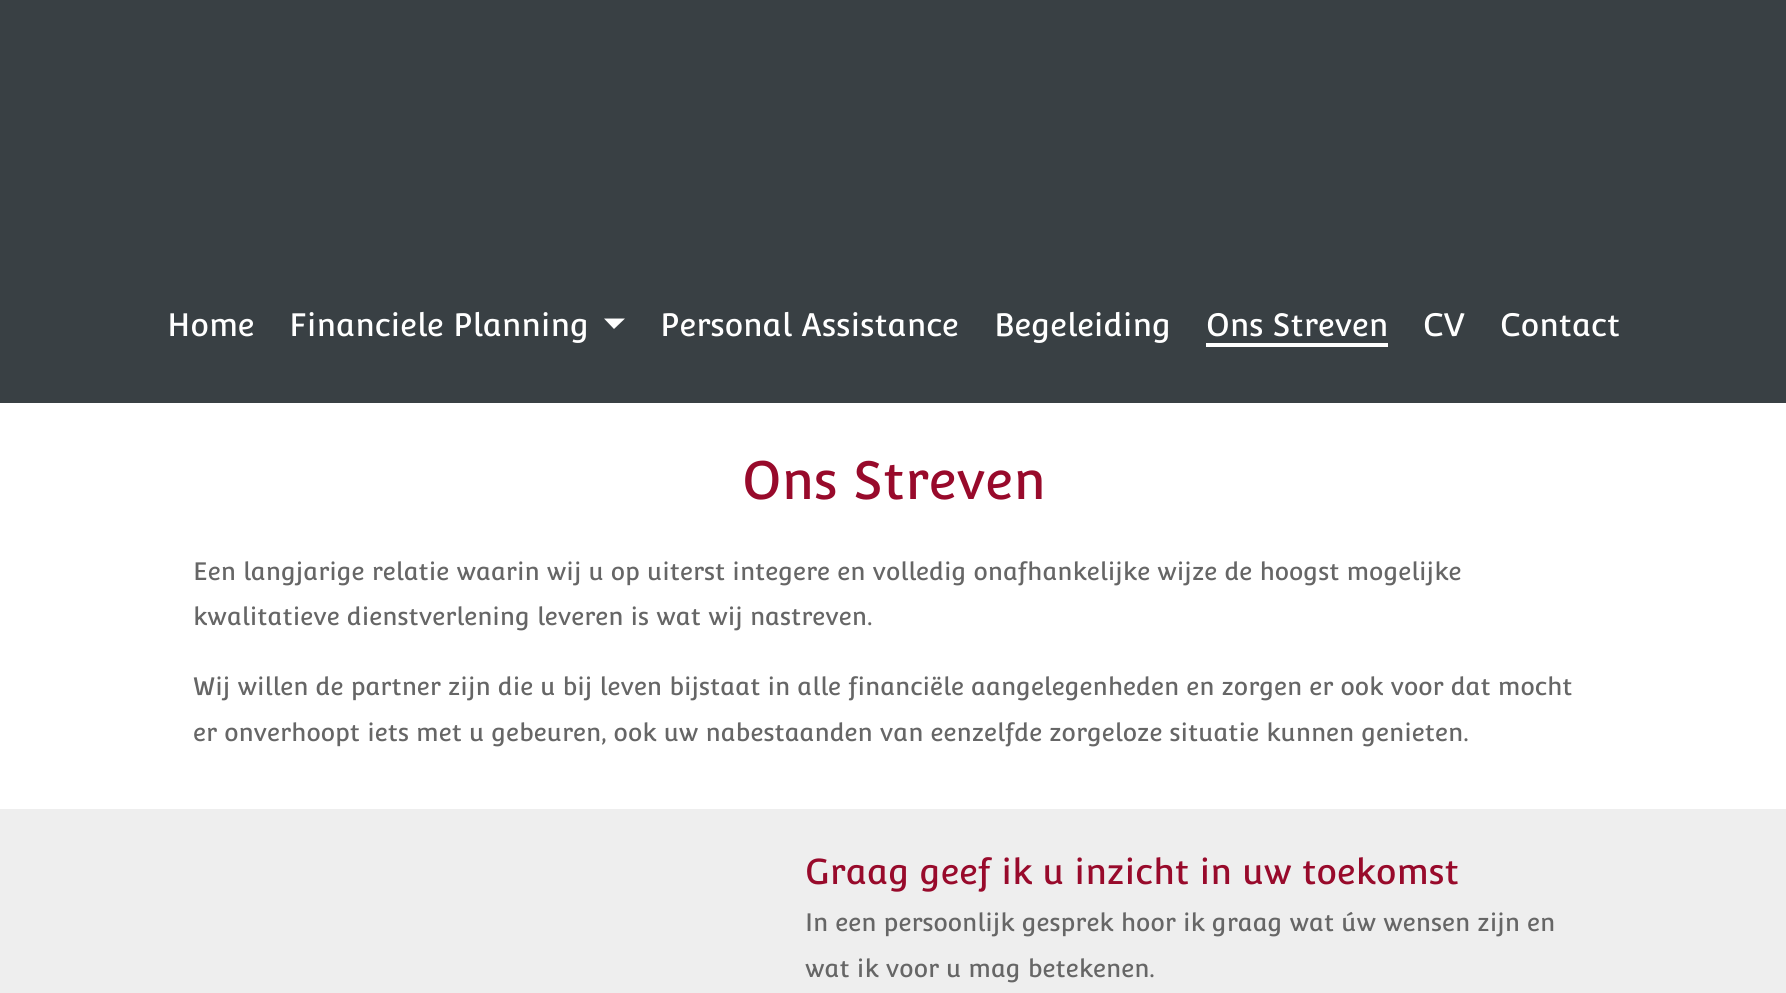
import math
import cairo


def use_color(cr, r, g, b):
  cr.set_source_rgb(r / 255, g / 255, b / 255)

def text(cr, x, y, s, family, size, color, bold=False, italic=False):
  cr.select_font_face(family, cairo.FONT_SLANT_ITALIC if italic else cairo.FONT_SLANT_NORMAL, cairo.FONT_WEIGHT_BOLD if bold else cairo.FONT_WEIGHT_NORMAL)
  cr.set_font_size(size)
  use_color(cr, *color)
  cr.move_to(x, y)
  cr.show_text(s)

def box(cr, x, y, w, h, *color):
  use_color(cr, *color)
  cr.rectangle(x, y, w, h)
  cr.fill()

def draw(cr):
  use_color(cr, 57, 64, 68)
  cr.paint()
  use_color(cr, 255, 255, 255)
  cr.new_path()
  cr.move_to(604, 318.5)
  cr.line_to(625, 318.5)
  cr.line_to(614, 329)
  cr.close_path()
  cr.fill()
  box(cr, 1206, 343, 182, 4, 255, 255, 255)
  box(cr, 0, 403, 1786, 406, 255, 255, 255)
  box(cr, 0, 809, 1786, 184, 238, 238, 238)
  text(cr, 167, 336, "Home", "Convergence", 31.5, (255, 255, 255))
  text(cr, 289, 336, "Financiele Planning", "Convergence", 31.5, (255, 255, 255))
  text(cr, 660, 336, "Personal Assistance", "Convergence", 31.5, (255, 255, 255))
  text(cr, 994, 336, "Begeleiding", "Convergence", 31.5, (255, 255, 255))
  text(cr, 1206, 336, "Ons Streven", "Convergence", 31.5, (255, 255, 255))
  text(cr, 1423, 336, "CV", "Convergence", 31.5, (255, 255, 255))
  text(cr, 1500, 336, "Contact", "Convergence", 31.5, (255, 255, 255))
  text(cr, 742, 499, "Ons Streven", "Convergence", 52.5, (152, 10, 43))
  text(cr, 193, 580, "Een langjarige relatie waarin wij u op uiterst integere en volledig onafhankelijke wijze de hoogst mogelijke", "Convergence", 24.5, (102, 102, 102))
  text(cr, 193, 625, "kwalitatieve dienstverlening leveren is wat wij nastreven.", "Convergence", 24.5, (102, 102, 102))
  text(cr, 193, 695, "Wij willen de partner zijn die u bij leven bijstaat in alle financiële aangelegenheden en zorgen er ook voor dat mocht", "Convergence", 24.5, (102, 102, 102))
  text(cr, 193, 741, "er onverhoopt iets met u gebeuren, ook uw nabestaanden van eenzelfde zorgeloze situatie kunnen genieten.", "Convergence", 24.5, (102, 102, 102))
  text(cr, 805, 884, "Graag geef ik u inzicht in uw toekomst", "Convergence", 35, (152, 10, 43))
  text(cr, 805, 931, "In een persoonlijk gesprek hoor ik graag wat úw wensen zijn en", "Convergence", 24.5, (102, 102, 102))
  text(cr, 805, 977, "wat ik voor u mag betekenen.", "Convergence", 24.5, (102, 102, 102))


surface = cairo.ImageSurface(cairo.FORMAT_RGB24, 1786, 993)
cr = cairo.Context(surface)
options = cairo.FontOptions()
options.set_hint_metrics(cairo.HINT_METRICS_OFF)
options.set_hint_style(cairo.HINT_STYLE_NONE)
cr.set_font_options(options)
cr.set_miter_limit(4)
draw(cr)
surface.write_to_png("out.png")
